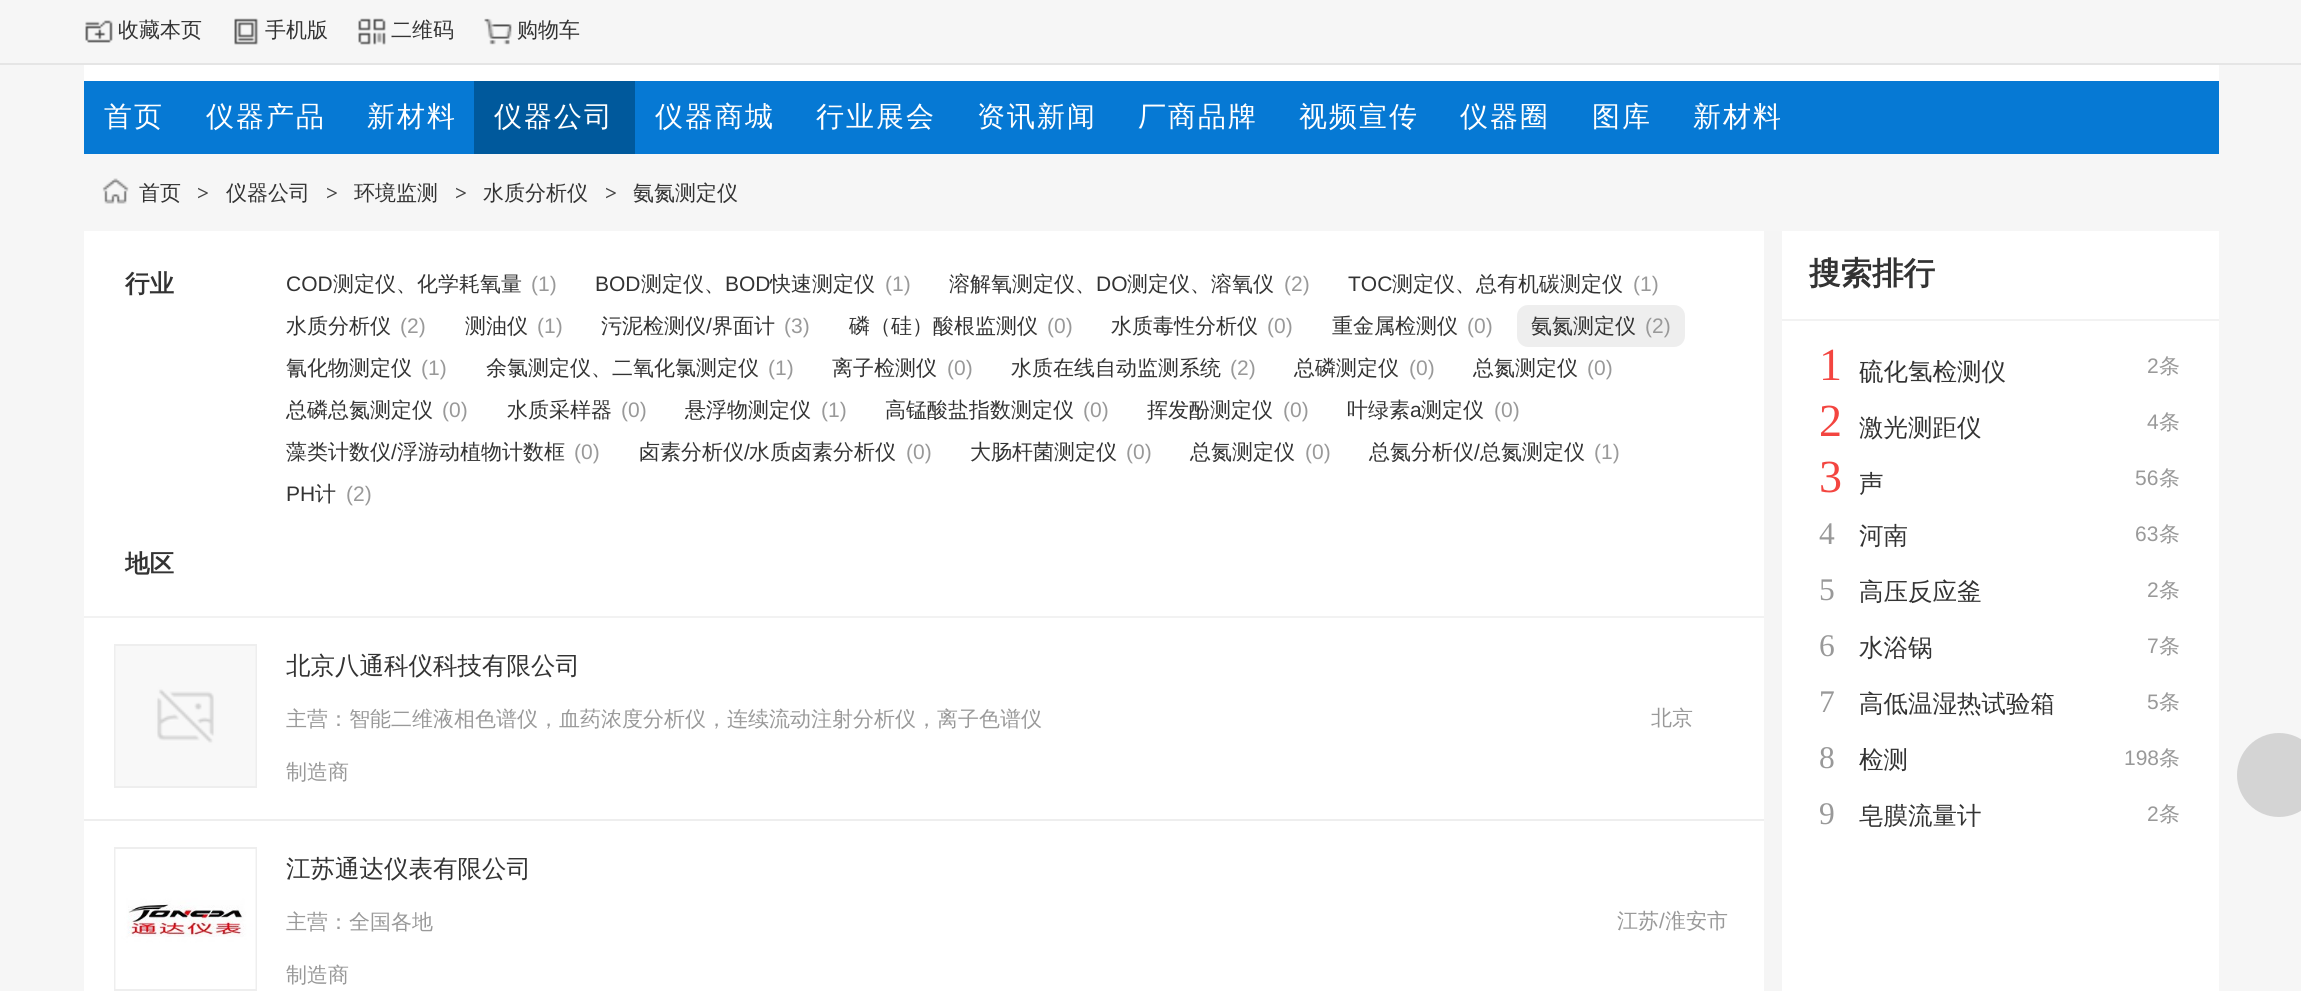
import math
import cairo


def use_color(cr, r, g, b):
  cr.set_source_rgb(r / 255, g / 255, b / 255)

def text(cr, x, y, s, family, size, color, bold=False, italic=False):
  cr.select_font_face(family, cairo.FONT_SLANT_ITALIC if italic else cairo.FONT_SLANT_NORMAL, cairo.FONT_WEIGHT_BOLD if bold else cairo.FONT_WEIGHT_NORMAL)
  cr.set_font_size(size)
  use_color(cr, *color)
  cr.move_to(x, y)
  cr.show_text(s)

def spaced_text(cr, x, y, s, letter, word):
  cr.move_to(x, y)
  for ch in s:
    cr.show_text(ch)
    cr.rel_move_to(letter + word * (ch == ' '), 0)

def box(cr, x, y, w, h, *color):
  use_color(cr, *color)
  cr.rectangle(x, y, w, h)
  cr.fill()

def round_rect(cr, x, y, w, h, r):
  cr.new_sub_path()
  for i, (u, v) in enumerate([(x + w - r, y + h - r), (x + r, y + h - r), (x + r, y + r), (x + w - r, y + r)]):
    cr.arc(u, v, r, i * math.pi / 2, (i + 1) * math.pi / 2)
  cr.close_path()

def picture(cr, path, x, y, w, h):
  cr.save()
  cr.set_source_surface(cairo.ImageSurface.create_from_png(path), x, y)
  cr.rectangle(x, y, w, h)
  cr.fill()
  cr.restore()

def draw(cr):
  use_color(cr, 246, 246, 246)
  cr.paint()
  box(cr, 0, 63, 2301, 2, 229, 229, 229)
  picture(cr, "img_01.png", 85, 20, 28, 23)
  picture(cr, "img_02.png", 234, 18, 25, 27)
  picture(cr, "img_03.png", 358, 18, 28, 27)
  picture(cr, "img_04.png", 484, 18, 28, 27)
  box(cr, 84, 65, 2135, 16, 255, 255, 255)
  box(cr, 84, 81, 2135, 73, 6, 121, 212)
  box(cr, 474, 81, 161, 73, 0, 89, 156)
  picture(cr, "img_05.png", 102, 178, 27, 26)
  box(cr, 84, 231, 2135, 760, 255, 255, 255)
  box(cr, 1764, 231, 18, 760, 245, 245, 245)
  box(cr, 84, 616, 1680, 2, 242, 242, 242)
  use_color(cr, 238, 238, 238)
  round_rect(cr, 1517, 305, 168, 42, 11)
  cr.fill()
  box(cr, 84, 819, 1680, 2, 238, 238, 238)
  cr.rectangle(115, 645, 141, 142)
  cr.stroke()
  picture(cr, "img_06.png", 115, 646, 141, 140)
  cr.rectangle(115, 848, 141, 142)
  cr.stroke()
  picture(cr, "img_07.png", 115, 849, 141, 140)
  box(cr, 1782, 319, 437, 2, 242, 242, 242)
  use_color(cr, 212, 212, 212)
  cr.arc(2279, 775, 42, 0, 2 * math.pi)
  cr.fill()
  text(cr, 118, 37, "收藏本页", "WenQuanYi Zen Hei Medium", 21, (51, 51, 51))
  text(cr, 265, 37, "手机版", "WenQuanYi Zen Hei Medium", 21, (51, 51, 51))
  text(cr, 391, 37, "二维码", "WenQuanYi Zen Hei Medium", 21, (51, 51, 51))
  text(cr, 517, 37, "购物车", "WenQuanYi Zen Hei Medium", 21, (51, 51, 51))
  cr.set_font_size(28)
  use_color(cr, 255, 255, 255)
  spaced_text(cr, 104, 126, "首页", 2, 0)
  spaced_text(cr, 206, 126, "仪器产品", 2, 0)
  spaced_text(cr, 367, 126, "新材料", 2, 0)
  spaced_text(cr, 494, 126, "仪器公司", 2, 0)
  spaced_text(cr, 655, 126, "仪器商城", 2, 0)
  spaced_text(cr, 816, 126, "行业展会", 2, 0)
  spaced_text(cr, 977, 126, "资讯新闻", 2, 0)
  spaced_text(cr, 1138, 126, "厂商品牌", 2, 0)
  spaced_text(cr, 1299, 126, "视频宣传", 2, 0)
  spaced_text(cr, 1460, 126, "仪器圈", 2, 0)
  spaced_text(cr, 1592, 126, "图库", 2, 0)
  spaced_text(cr, 1693, 126, "新材料", 2, 0)
  text(cr, 139, 200, "首页", "WenQuanYi Zen Hei Medium", 21, (51, 51, 51))
  text(cr, 197, 200, ">", "Liberation Serif", 21, (68, 68, 68), bold=True)
  text(cr, 226, 200, "仪器公司", "WenQuanYi Zen Hei Medium", 21, (51, 51, 51))
  text(cr, 326, 200, ">", "Liberation Serif", 21, (68, 68, 68), bold=True)
  text(cr, 354, 200, "环境监测", "WenQuanYi Zen Hei Medium", 21, (51, 51, 51))
  text(cr, 455, 200, ">", "Liberation Serif", 21, (68, 68, 68), bold=True)
  text(cr, 483, 200, "水质分析仪", "WenQuanYi Zen Hei Medium", 21, (51, 51, 51))
  text(cr, 605, 200, ">", "Liberation Serif", 21, (68, 68, 68), bold=True)
  text(cr, 633, 200, "氨氮测定仪", "WenQuanYi Zen Hei Medium", 21, (51, 51, 51))
  text(cr, 125, 292, "行业", "WenQuanYi Zen Hei", 24.5, (51, 51, 51), bold=True)
  text(cr, 286, 291, "COD", "Liberation Sans", 21, (51, 51, 51))
  text(cr, 333, 291, "测定仪、化学耗氧量", "WenQuanYi Zen Hei Medium", 21, (51, 51, 51))
  text(cr, 531, 291, "(1)", "Liberation Sans", 21, (153, 153, 153))
  text(cr, 595, 291, "BOD", "Liberation Sans", 21, (51, 51, 51))
  text(cr, 641, 291, "测定仪、", "WenQuanYi Zen Hei Medium", 21, (51, 51, 51))
  text(cr, 725, 291, "BOD", "Liberation Sans", 21, (51, 51, 51))
  text(cr, 770, 291, "快速测定仪", "WenQuanYi Zen Hei Medium", 21, (51, 51, 51))
  text(cr, 885, 291, "(1)", "Liberation Sans", 21, (153, 153, 153))
  text(cr, 949, 291, "溶解氧测定仪、", "WenQuanYi Zen Hei Medium", 21, (51, 51, 51))
  text(cr, 1096, 291, "DO", "Liberation Sans", 21, (51, 51, 51))
  text(cr, 1127, 291, "测定仪、溶氧仪", "WenQuanYi Zen Hei Medium", 21, (51, 51, 51))
  text(cr, 1284, 291, "(2)", "Liberation Sans", 21, (153, 153, 153))
  text(cr, 1348, 291, "TOC", "Liberation Sans", 21, (51, 51, 51))
  text(cr, 1392, 291, "测定仪、总有机碳测定仪", "WenQuanYi Zen Hei Medium", 21, (51, 51, 51))
  text(cr, 1633, 291, "(1)", "Liberation Sans", 21, (153, 153, 153))
  text(cr, 286, 333, "水质分析仪", "WenQuanYi Zen Hei Medium", 21, (51, 51, 51))
  text(cr, 400, 333, "(2)", "Liberation Sans", 21, (153, 153, 153))
  text(cr, 465, 333, "测油仪", "WenQuanYi Zen Hei Medium", 21, (51, 51, 51))
  text(cr, 537, 333, "(1)", "Liberation Sans", 21, (153, 153, 153))
  text(cr, 601, 333, "污泥检测仪", "WenQuanYi Zen Hei Medium", 21, (51, 51, 51))
  text(cr, 706, 333, "/", "Liberation Sans", 21, (51, 51, 51))
  text(cr, 712, 333, "界面计", "WenQuanYi Zen Hei Medium", 21, (51, 51, 51))
  text(cr, 784, 333, "(3)", "Liberation Sans", 21, (153, 153, 153))
  text(cr, 849, 333, "磷（硅）酸根监测仪", "WenQuanYi Zen Hei Medium", 21, (51, 51, 51))
  text(cr, 1047, 333, "(0)", "Liberation Sans", 21, (153, 153, 153))
  text(cr, 1111, 333, "水质毒性分析仪", "WenQuanYi Zen Hei Medium", 21, (51, 51, 51))
  text(cr, 1267, 333, "(0)", "Liberation Sans", 21, (153, 153, 153))
  text(cr, 1332, 333, "重金属检测仪", "WenQuanYi Zen Hei Medium", 21, (51, 51, 51))
  text(cr, 1467, 333, "(0)", "Liberation Sans", 21, (153, 153, 153))
  text(cr, 1531, 333, "氨氮测定仪", "WenQuanYi Zen Hei Medium", 21, (51, 51, 51))
  text(cr, 1645, 333, "(2)", "Liberation Sans", 21, (153, 153, 153))
  text(cr, 286, 375, "氰化物测定仪", "WenQuanYi Zen Hei Medium", 21, (51, 51, 51))
  text(cr, 421, 375, "(1)", "Liberation Sans", 21, (153, 153, 153))
  text(cr, 486, 375, "余氯测定仪、二氧化氯测定仪", "WenQuanYi Zen Hei Medium", 21, (51, 51, 51))
  text(cr, 768, 375, "(1)", "Liberation Sans", 21, (153, 153, 153))
  text(cr, 832, 375, "离子检测仪", "WenQuanYi Zen Hei Medium", 21, (51, 51, 51))
  text(cr, 947, 375, "(0)", "Liberation Sans", 21, (153, 153, 153))
  text(cr, 1011, 375, "水质在线自动监测系统", "WenQuanYi Zen Hei Medium", 21, (51, 51, 51))
  text(cr, 1230, 375, "(2)", "Liberation Sans", 21, (153, 153, 153))
  text(cr, 1294, 375, "总磷测定仪", "WenQuanYi Zen Hei Medium", 21, (51, 51, 51))
  text(cr, 1409, 375, "(0)", "Liberation Sans", 21, (153, 153, 153))
  text(cr, 1473, 375, "总氮测定仪", "WenQuanYi Zen Hei Medium", 21, (51, 51, 51))
  text(cr, 1587, 375, "(0)", "Liberation Sans", 21, (153, 153, 153))
  text(cr, 286, 417, "总磷总氮测定仪", "WenQuanYi Zen Hei Medium", 21, (51, 51, 51))
  text(cr, 442, 417, "(0)", "Liberation Sans", 21, (153, 153, 153))
  text(cr, 507, 417, "水质采样器", "WenQuanYi Zen Hei Medium", 21, (51, 51, 51))
  text(cr, 621, 417, "(0)", "Liberation Sans", 21, (153, 153, 153))
  text(cr, 685, 417, "悬浮物测定仪", "WenQuanYi Zen Hei Medium", 21, (51, 51, 51))
  text(cr, 821, 417, "(1)", "Liberation Sans", 21, (153, 153, 153))
  text(cr, 885, 417, "高锰酸盐指数测定仪", "WenQuanYi Zen Hei Medium", 21, (51, 51, 51))
  text(cr, 1083, 417, "(0)", "Liberation Sans", 21, (153, 153, 153))
  text(cr, 1147, 417, "挥发酚测定仪", "WenQuanYi Zen Hei Medium", 21, (51, 51, 51))
  text(cr, 1283, 417, "(0)", "Liberation Sans", 21, (153, 153, 153))
  text(cr, 1347, 417, "叶绿素", "WenQuanYi Zen Hei Medium", 21, (51, 51, 51))
  text(cr, 1410, 417, "a", "Liberation Sans", 21, (51, 51, 51))
  text(cr, 1421, 417, "测定仪", "WenQuanYi Zen Hei Medium", 21, (51, 51, 51))
  text(cr, 1494, 417, "(0)", "Liberation Sans", 21, (153, 153, 153))
  text(cr, 286, 459, "藻类计数仪", "WenQuanYi Zen Hei Medium", 21, (51, 51, 51))
  text(cr, 391, 459, "/", "Liberation Sans", 21, (51, 51, 51))
  text(cr, 397, 459, "浮游动植物计数框", "WenQuanYi Zen Hei Medium", 21, (51, 51, 51))
  text(cr, 574, 459, "(0)", "Liberation Sans", 21, (153, 153, 153))
  text(cr, 639, 459, "卤素分析仪", "WenQuanYi Zen Hei Medium", 21, (51, 51, 51))
  text(cr, 744, 459, "/", "Liberation Sans", 21, (51, 51, 51))
  text(cr, 749, 459, "水质卤素分析仪", "WenQuanYi Zen Hei Medium", 21, (51, 51, 51))
  text(cr, 906, 459, "(0)", "Liberation Sans", 21, (153, 153, 153))
  text(cr, 970, 459, "大肠杆菌测定仪", "WenQuanYi Zen Hei Medium", 21, (51, 51, 51))
  text(cr, 1126, 459, "(0)", "Liberation Sans", 21, (153, 153, 153))
  text(cr, 1190, 459, "总氮测定仪", "WenQuanYi Zen Hei Medium", 21, (51, 51, 51))
  text(cr, 1305, 459, "(0)", "Liberation Sans", 21, (153, 153, 153))
  text(cr, 1369, 459, "总氮分析仪", "WenQuanYi Zen Hei Medium", 21, (51, 51, 51))
  text(cr, 1474, 459, "/", "Liberation Sans", 21, (51, 51, 51))
  text(cr, 1480, 459, "总氮测定仪", "WenQuanYi Zen Hei Medium", 21, (51, 51, 51))
  text(cr, 1594, 459, "(1)", "Liberation Sans", 21, (153, 153, 153))
  text(cr, 286, 501, "PH", "Liberation Sans", 21, (51, 51, 51))
  text(cr, 315, 501, "计", "WenQuanYi Zen Hei Medium", 21, (51, 51, 51))
  text(cr, 346, 501, "(2)", "Liberation Sans", 21, (153, 153, 153))
  text(cr, 125, 572, "地区", "WenQuanYi Zen Hei", 24.5, (51, 51, 51), bold=True)
  text(cr, 286, 674, "北京八通科仪科技有限公司", "WenQuanYi Zen Hei Medium", 24.5, (51, 51, 51))
  text(cr, 286, 726, "主营：智能二维液相色谱仪，血药浓度分析仪，连续流动注射分析仪，离子色谱仪", "WenQuanYi Zen Hei Medium", 21, (153, 153, 153))
  text(cr, 286, 779, "制造商", "WenQuanYi Zen Hei Medium", 21, (153, 153, 153))
  text(cr, 1651, 725, "北京", "WenQuanYi Zen Hei Medium", 21, (153, 153, 153))
  text(cr, 286, 877, "江苏通达仪表有限公司", "WenQuanYi Zen Hei Medium", 24.5, (51, 51, 51))
  text(cr, 286, 929, "主营：全国各地", "WenQuanYi Zen Hei Medium", 21, (153, 153, 153))
  text(cr, 286, 982, "制造商", "WenQuanYi Zen Hei Medium", 21, (153, 153, 153))
  text(cr, 1617, 928, "江苏", "WenQuanYi Zen Hei Medium", 21, (153, 153, 153))
  text(cr, 1659, 928, "/", "Liberation Sans", 21, (153, 153, 153))
  text(cr, 1665, 928, "淮安市", "WenQuanYi Zen Hei Medium", 21, (153, 153, 153))
  text(cr, 1809, 284, "搜索排行", "WenQuanYi Zen Hei", 31.5, (51, 51, 51), bold=True)
  text(cr, 1819, 380, "1", "Liberation Serif", 46, (243, 69, 64))
  text(cr, 1859, 380, "硫化氢检测仪", "WenQuanYi Zen Hei Medium", 24.5, (51, 51, 51))
  text(cr, 2147, 373, "2", "Liberation Sans", 21, (153, 153, 153))
  text(cr, 2159, 373, "条", "WenQuanYi Zen Hei Medium", 21, (153, 153, 153))
  text(cr, 1819, 436, "2", "Liberation Serif", 46, (243, 69, 64))
  text(cr, 1859, 436, "激光测距仪", "WenQuanYi Zen Hei Medium", 24.5, (51, 51, 51))
  text(cr, 2147, 429, "4", "Liberation Sans", 21, (153, 153, 153))
  text(cr, 2159, 429, "条", "WenQuanYi Zen Hei Medium", 21, (153, 153, 153))
  text(cr, 1819, 492, "3", "Liberation Serif", 46, (243, 69, 64))
  text(cr, 1859, 492, "声", "WenQuanYi Zen Hei Medium", 24.5, (51, 51, 51))
  text(cr, 2135, 485, "56", "Liberation Sans", 21, (153, 153, 153))
  text(cr, 2159, 485, "条", "WenQuanYi Zen Hei Medium", 21, (153, 153, 153))
  text(cr, 1819, 544, "4", "Liberation Serif", 31.5, (153, 153, 153))
  text(cr, 1859, 544, "河南", "WenQuanYi Zen Hei Medium", 24.5, (51, 51, 51))
  text(cr, 2135, 541, "63", "Liberation Sans", 21, (153, 153, 153))
  text(cr, 2159, 541, "条", "WenQuanYi Zen Hei Medium", 21, (153, 153, 153))
  text(cr, 1819, 600, "5", "Liberation Serif", 31.5, (153, 153, 153))
  text(cr, 1859, 600, "高压反应釜", "WenQuanYi Zen Hei Medium", 24.5, (51, 51, 51))
  text(cr, 2147, 597, "2", "Liberation Sans", 21, (153, 153, 153))
  text(cr, 2159, 597, "条", "WenQuanYi Zen Hei Medium", 21, (153, 153, 153))
  text(cr, 1819, 656, "6", "Liberation Serif", 31.5, (153, 153, 153))
  text(cr, 1859, 656, "水浴锅", "WenQuanYi Zen Hei Medium", 24.5, (51, 51, 51))
  text(cr, 2147, 653, "7", "Liberation Sans", 21, (153, 153, 153))
  text(cr, 2159, 653, "条", "WenQuanYi Zen Hei Medium", 21, (153, 153, 153))
  text(cr, 1819, 712, "7", "Liberation Serif", 31.5, (153, 153, 153))
  text(cr, 1859, 712, "高低温湿热试验箱", "WenQuanYi Zen Hei Medium", 24.5, (51, 51, 51))
  text(cr, 2147, 709, "5", "Liberation Sans", 21, (153, 153, 153))
  text(cr, 2159, 709, "条", "WenQuanYi Zen Hei Medium", 21, (153, 153, 153))
  text(cr, 1819, 768, "8", "Liberation Serif", 31.5, (153, 153, 153))
  text(cr, 1859, 768, "检测", "WenQuanYi Zen Hei Medium", 24.5, (51, 51, 51))
  text(cr, 2124, 765, "198", "Liberation Sans", 21, (153, 153, 153))
  text(cr, 2159, 765, "条", "WenQuanYi Zen Hei Medium", 21, (153, 153, 153))
  text(cr, 1819, 824, "9", "Liberation Serif", 31.5, (153, 153, 153))
  text(cr, 1859, 824, "皂膜流量计", "WenQuanYi Zen Hei Medium", 24.5, (51, 51, 51))
  text(cr, 2147, 821, "2", "Liberation Sans", 21, (153, 153, 153))
  text(cr, 2159, 821, "条", "WenQuanYi Zen Hei Medium", 21, (153, 153, 153))


surface = cairo.ImageSurface(cairo.FORMAT_RGB24, 2301, 991)
cr = cairo.Context(surface)
options = cairo.FontOptions()
options.set_hint_metrics(cairo.HINT_METRICS_OFF)
options.set_hint_style(cairo.HINT_STYLE_NONE)
cr.set_font_options(options)
cr.set_miter_limit(4)
draw(cr)
surface.write_to_png("out.png")
